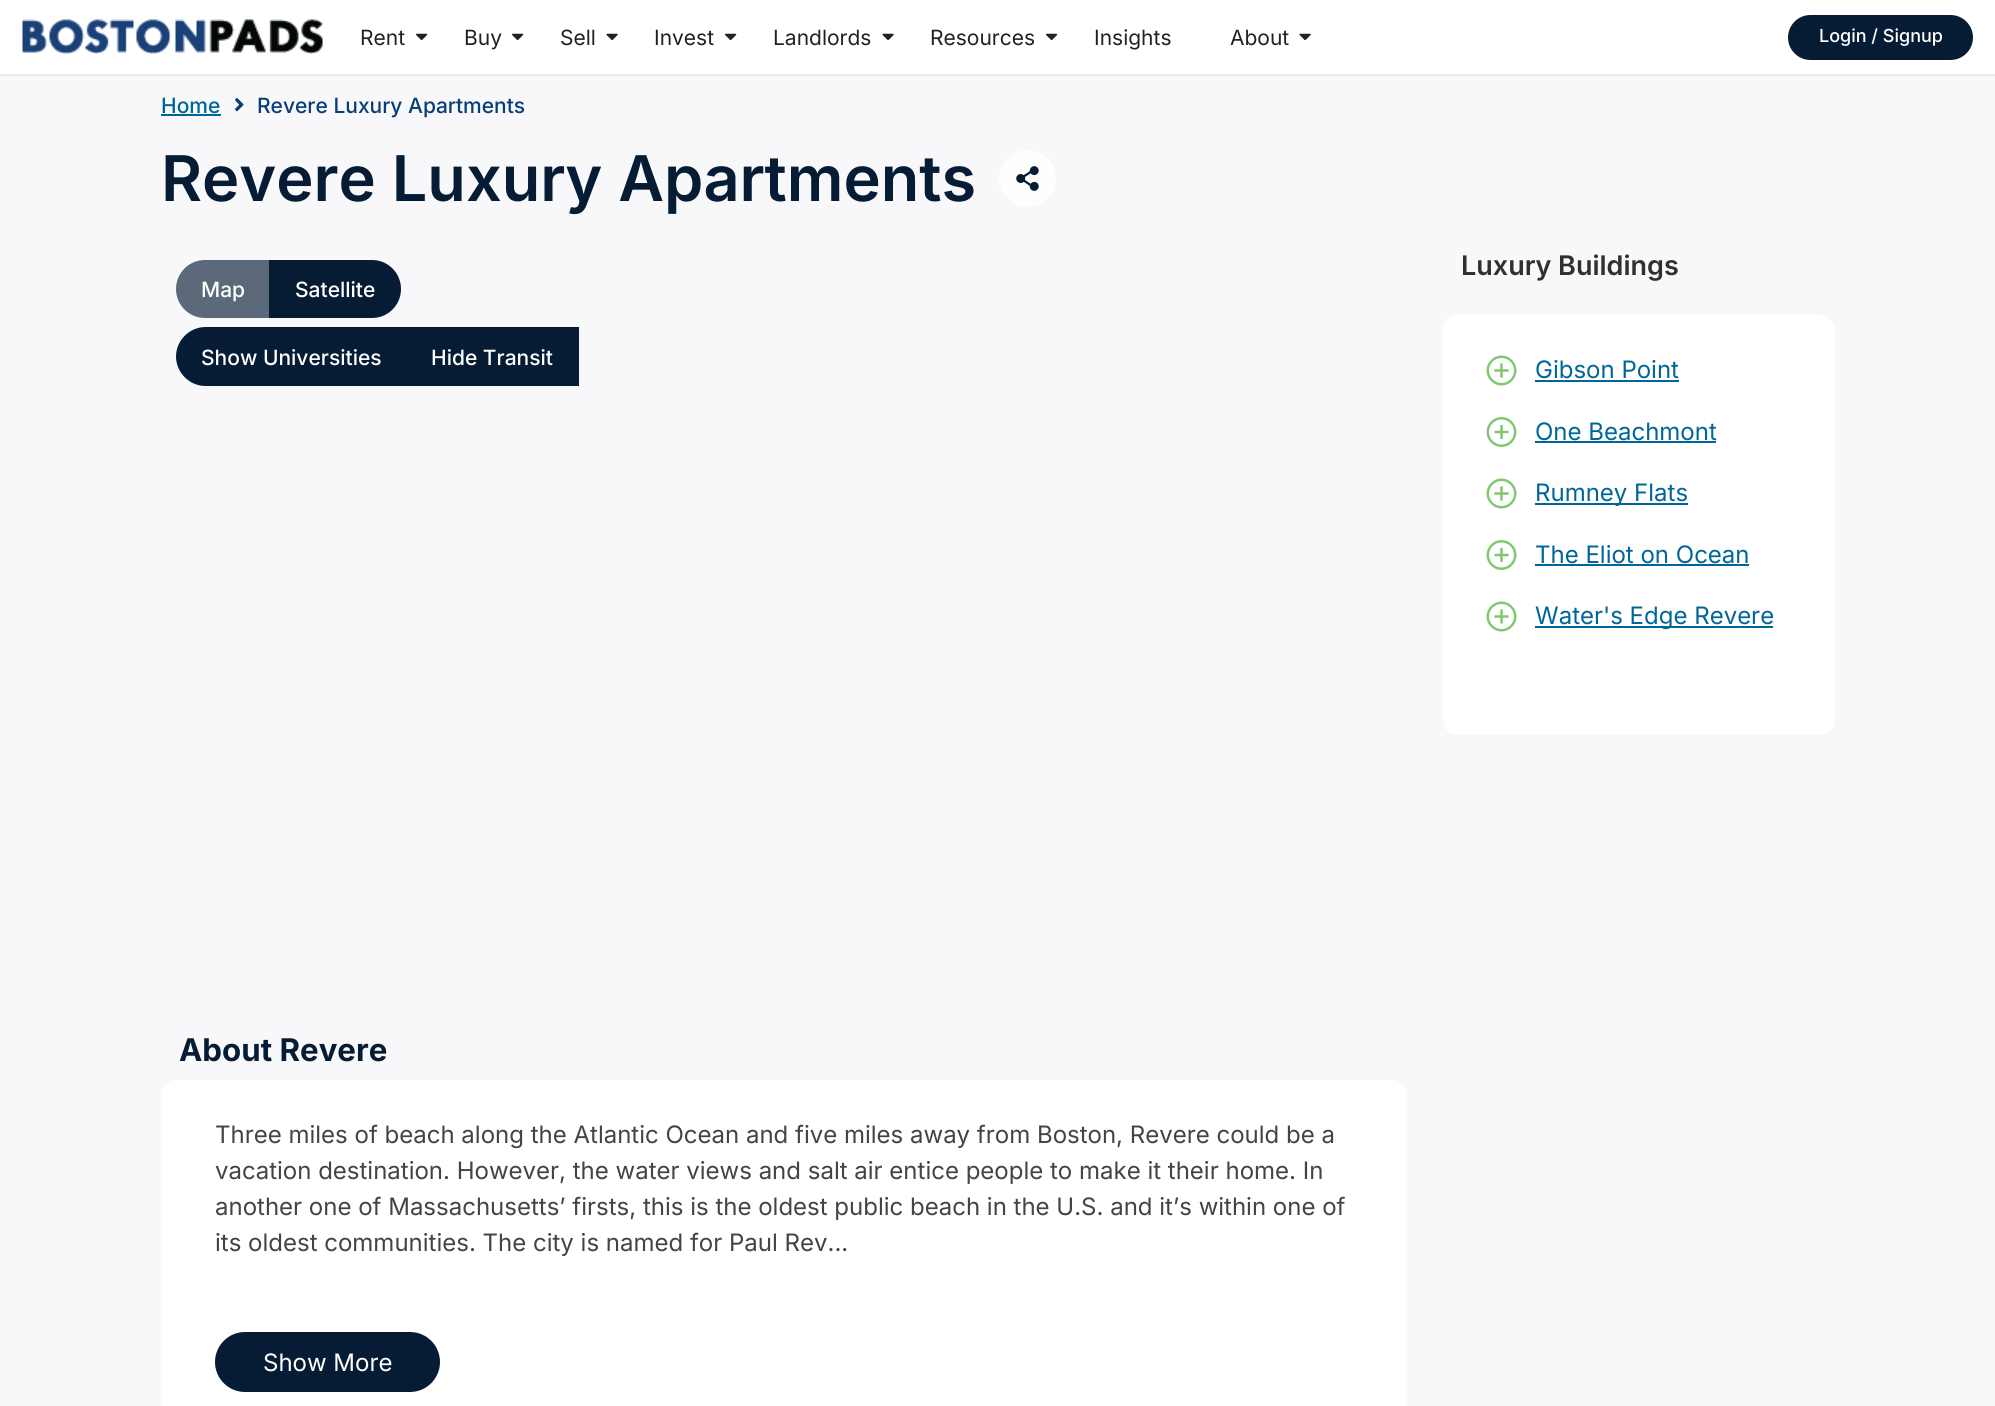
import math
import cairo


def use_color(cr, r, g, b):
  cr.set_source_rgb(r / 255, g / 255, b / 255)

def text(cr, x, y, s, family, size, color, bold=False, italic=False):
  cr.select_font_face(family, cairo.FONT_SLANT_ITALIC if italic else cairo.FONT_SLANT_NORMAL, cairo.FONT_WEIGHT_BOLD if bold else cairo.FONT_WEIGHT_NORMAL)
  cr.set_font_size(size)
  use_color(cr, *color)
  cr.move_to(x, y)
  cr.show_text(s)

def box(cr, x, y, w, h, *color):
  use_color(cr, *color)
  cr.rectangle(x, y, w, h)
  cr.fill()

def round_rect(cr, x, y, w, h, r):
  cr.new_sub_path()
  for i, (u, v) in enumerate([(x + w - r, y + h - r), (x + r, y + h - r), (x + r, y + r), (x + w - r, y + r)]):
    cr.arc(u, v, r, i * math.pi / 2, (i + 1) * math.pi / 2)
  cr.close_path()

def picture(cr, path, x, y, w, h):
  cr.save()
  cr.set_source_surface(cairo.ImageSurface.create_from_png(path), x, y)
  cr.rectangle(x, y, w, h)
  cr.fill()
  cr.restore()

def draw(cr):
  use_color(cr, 248, 248, 250)
  cr.paint()
  box(cr, 0, 0, 1995, 74, 255, 255, 255)
  box(cr, 0, 74, 1995, 2, 234, 233, 238)
  picture(cr, "img_01.png", 22, 19, 301, 35)
  picture(cr, "img_02.png", 416, 33, 12, 8)
  picture(cr, "img_02.png", 512, 33, 12, 8)
  picture(cr, "img_03.png", 606, 33, 12, 8)
  picture(cr, "img_02.png", 725, 33, 12, 8)
  picture(cr, "img_03.png", 882, 33, 12, 8)
  picture(cr, "img_02.png", 1046, 33, 12, 8)
  picture(cr, "img_03.png", 1299, 33, 12, 8)
  use_color(cr, 6, 28, 53)
  round_rect(cr, 1788, 15, 185, 45, 22.5)
  cr.fill()
  box(cr, 161, 114, 60, 2, 0, 102, 153)
  picture(cr, "img_04.png", 235, 98, 9, 14)
  use_color(cr, 254, 254, 254)
  cr.arc(1027.5, 178.5, 28.5, 0, 2 * math.pi)
  cr.fill()
  picture(cr, "img_05.png", 1016, 166, 23, 25)
  use_color(cr, 91, 105, 122)
  cr.new_path()
  cr.move_to(205, 261)
  cr.line_to(269, 261)
  cr.line_to(269, 317)
  cr.line_to(205, 317)
  cr.curve_to(189.5, 317, 177, 304.5, 177, 289)
  cr.curve_to(177, 273.5, 189.5, 261, 205, 261)
  cr.close_path()
  cr.fill_preserve()
  cr.stroke()
  use_color(cr, 6, 28, 53)
  cr.new_path()
  cr.move_to(270, 261)
  cr.line_to(372, 261)
  cr.curve_to(387.5, 261, 400, 273.5, 400, 289)
  cr.curve_to(400, 304.5, 387.5, 317, 372, 317)
  cr.line_to(270, 317)
  cr.close_path()
  cr.fill_preserve()
  cr.stroke()
  cr.new_path()
  cr.move_to(205.5, 328)
  cr.line_to(406, 328)
  cr.line_to(406, 385)
  cr.line_to(205.5, 385)
  cr.curve_to(190, 385, 177, 372, 177, 356.5)
  cr.curve_to(177, 341, 190, 328, 205.5, 328)
  cr.close_path()
  cr.fill_preserve()
  cr.stroke()
  box(cr, 407, 327, 172, 59, 6, 28, 53)
  use_color(cr, 255, 255, 255)
  round_rect(cr, 161, 1080, 1246, 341, 15)
  cr.fill()
  use_color(cr, 6, 28, 53)
  round_rect(cr, 215, 1332, 225, 60, 30)
  cr.fill()
  use_color(cr, 255, 255, 255)
  round_rect(cr, 1443, 315, 392, 420, 15)
  cr.fill()
  picture(cr, "img_06.png", 1486, 355, 31, 31)
  box(cr, 1535, 380, 144, 2, 0, 102, 153)
  picture(cr, "img_07.png", 1486, 417, 31, 30)
  box(cr, 1535, 441, 181, 2, 0, 102, 153)
  picture(cr, "img_06.png", 1486, 478, 31, 31)
  box(cr, 1535, 503, 153, 2, 0, 102, 153)
  picture(cr, "img_07.png", 1486, 540, 31, 30)
  box(cr, 1535, 564, 214, 2, 0, 102, 153)
  picture(cr, "img_06.png", 1486, 601, 31, 31)
  box(cr, 1535, 626, 238, 2, 0, 102, 153)
  text(cr, 360, 45, "Rent", "Inter", 21, (34, 34, 34))
  text(cr, 464, 45, "Buy", "Inter", 21, (34, 34, 34))
  text(cr, 560, 45, "Sell", "Inter", 21, (34, 34, 34))
  text(cr, 654, 45, "Invest", "Inter", 21, (34, 34, 34))
  text(cr, 773, 45, "Landlords", "Inter", 21, (34, 34, 34))
  text(cr, 930, 45, "Resources", "Inter", 21, (34, 34, 34))
  text(cr, 1094, 45, "Insights", "Inter", 21, (34, 34, 34))
  text(cr, 1230, 45, "About", "Inter", 21, (34, 34, 34))
  text(cr, 1819, 42, "Login / Signup", "Inter Medium", 18, (255, 255, 255))
  text(cr, 161, 113, "Home", "Inter Medium", 21, (0, 102, 153))
  text(cr, 257, 113, "Revere Luxury Apartments", "Inter Medium", 21, (7, 62, 122))
  text(cr, 161, 201, "Revere Luxury Apartments", "Inter SemiBold", 63, (6, 28, 53))
  text(cr, 201, 297, "Map", "Inter Medium", 21, (255, 255, 255))
  text(cr, 295, 297, "Satellite", "Inter Medium", 21, (255, 255, 255))
  text(cr, 201, 365, "Show Universities", "Inter Medium", 21, (255, 255, 255))
  text(cr, 431, 365, "Hide Transit", "Inter Medium", 21, (255, 255, 255))
  text(cr, 179, 1061, "About Revere", "Inter", 31.25, (6, 28, 53), bold=True)
  text(cr, 215, 1143, "Three miles of beach along the Atlantic Ocean and five miles away from Boston, Revere could be a", "Inter", 24, (68, 68, 68))
  text(cr, 215, 1179, "vacation destination. However, the water views and salt air entice people to make it their home. In", "Inter", 24, (68, 68, 68))
  text(cr, 215, 1215, "another one of Massachusetts’ firsts, this is the oldest public beach in the U.S. and it’s within one of", "Inter", 24, (68, 68, 68))
  text(cr, 215, 1251, "its oldest communities. The city is named for Paul Rev...", "Inter", 24, (68, 68, 68))
  text(cr, 263, 1371, "Show More", "Inter", 24, (255, 255, 255))
  text(cr, 1461, 275, "Luxury Buildings", "Inter SemiBold", 27, (48, 48, 48))
  text(cr, 1535, 378, "Gibson Point", "Inter", 24, (0, 102, 153))
  text(cr, 1535, 440, "One Beachmont", "Inter", 24, (0, 102, 153))
  text(cr, 1535, 501, "Rumney Flats", "Inter", 24, (0, 102, 153))
  text(cr, 1535, 563, "The Eliot on Ocean", "Inter", 24, (0, 102, 153))
  text(cr, 1535, 624, "Water's Edge Revere", "Inter", 24, (0, 102, 153))


surface = cairo.ImageSurface(cairo.FORMAT_RGB24, 1995, 1406)
cr = cairo.Context(surface)
options = cairo.FontOptions()
options.set_hint_metrics(cairo.HINT_METRICS_OFF)
options.set_hint_style(cairo.HINT_STYLE_NONE)
cr.set_font_options(options)
cr.set_miter_limit(4)
draw(cr)
surface.write_to_png("out.png")
